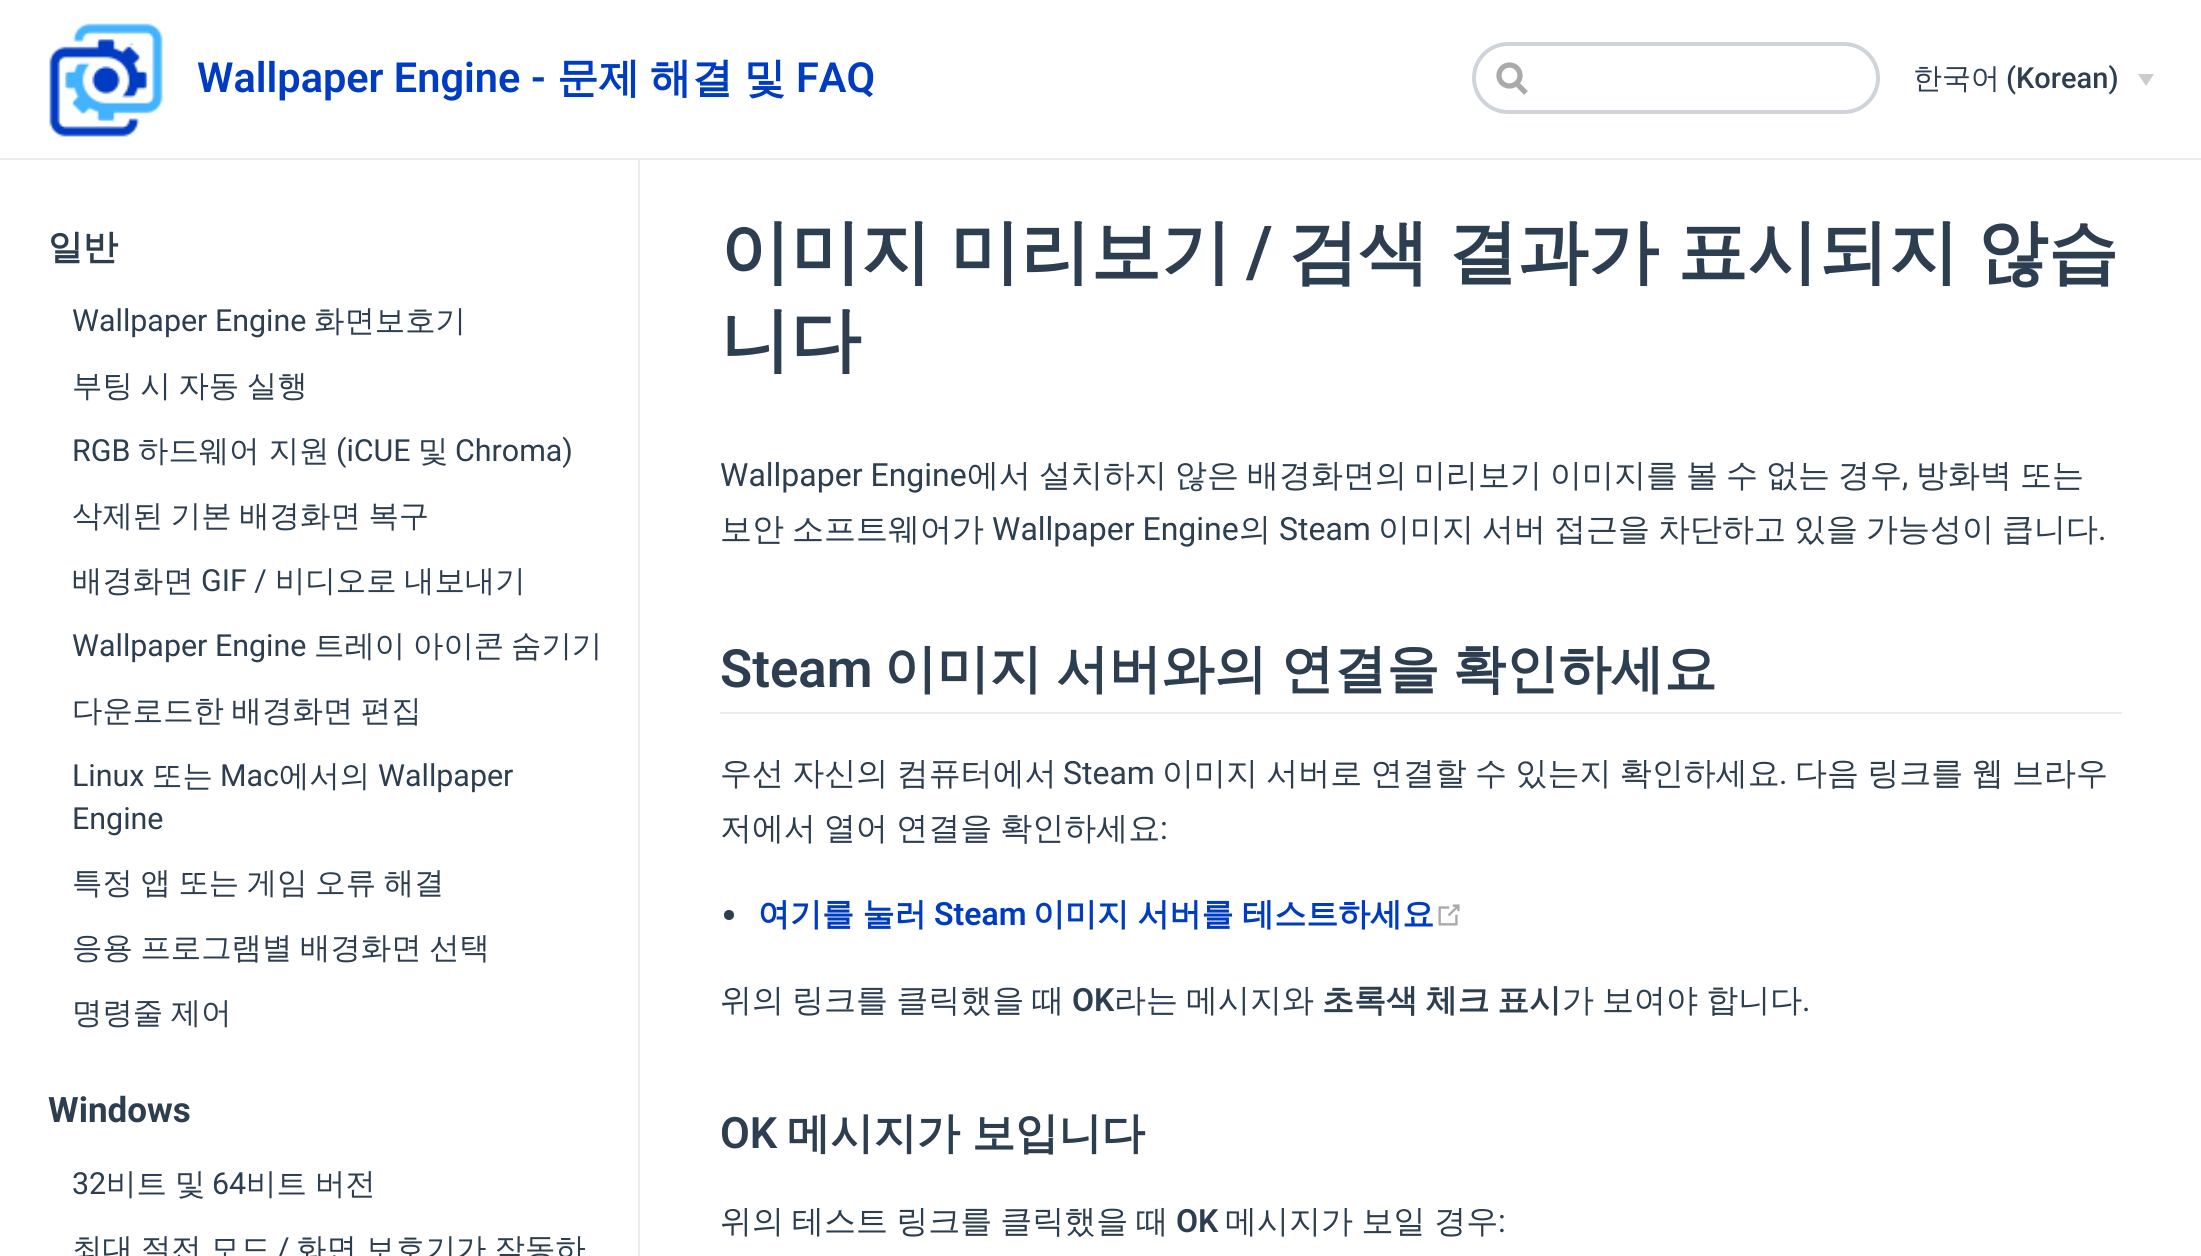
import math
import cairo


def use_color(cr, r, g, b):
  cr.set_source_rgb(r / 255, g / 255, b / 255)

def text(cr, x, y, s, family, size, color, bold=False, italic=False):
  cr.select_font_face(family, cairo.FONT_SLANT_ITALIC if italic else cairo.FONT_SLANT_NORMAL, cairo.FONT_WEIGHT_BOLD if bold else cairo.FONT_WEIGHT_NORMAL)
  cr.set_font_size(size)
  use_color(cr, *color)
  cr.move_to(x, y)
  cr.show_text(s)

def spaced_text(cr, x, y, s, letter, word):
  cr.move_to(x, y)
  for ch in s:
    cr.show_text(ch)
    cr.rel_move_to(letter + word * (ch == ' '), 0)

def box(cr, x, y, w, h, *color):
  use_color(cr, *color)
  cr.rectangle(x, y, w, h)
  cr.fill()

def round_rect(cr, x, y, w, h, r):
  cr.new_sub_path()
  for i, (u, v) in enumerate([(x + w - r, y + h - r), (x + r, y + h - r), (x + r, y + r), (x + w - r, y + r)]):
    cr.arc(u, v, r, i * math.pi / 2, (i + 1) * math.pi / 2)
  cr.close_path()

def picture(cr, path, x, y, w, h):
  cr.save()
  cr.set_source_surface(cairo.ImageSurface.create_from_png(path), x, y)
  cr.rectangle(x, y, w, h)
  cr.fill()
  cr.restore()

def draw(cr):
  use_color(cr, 255, 255, 255)
  cr.paint()
  box(cr, 0, 158, 2201, 2, 234, 236, 239)
  picture(cr, "img_01.png", 49, 23, 114, 114)
  cr.new_path()
  cr.move_to(1526, 93)
  cr.line_to(1515.5, 82.5)
  use_color(cr, 170, 170, 170)
  cr.set_line_width(5.3)
  cr.stroke()
  cr.arc(1509.5, 75.5, 10.5, 0, 2 * math.pi)
  cr.stroke()
  round_rect(cr, 1474, 44, 404, 68, 34)
  use_color(cr, 207, 212, 219)
  cr.set_line_width(4)
  cr.stroke()
  use_color(cr, 204, 204, 204)
  cr.new_path()
  cr.move_to(2138, 74)
  cr.line_to(2154, 74)
  cr.line_to(2146, 86)
  cr.close_path()
  cr.fill()
  box(cr, 638, 160, 2, 1096, 234, 236, 239)
  box(cr, 720, 712, 1402, 2, 234, 236, 239)
  use_color(cr, 44, 62, 80)
  cr.arc(729, 915, 5, 0, 2 * math.pi)
  cr.fill()
  picture(cr, "img_02.png", 1438, 904, 22, 22)
  text(cr, 197, 92, "Wallpaper Engine -", "Roboto SemiBold", 41.5, (0, 60, 193))
  text(cr, 557, 92, "문제", "WenQuanYi Zen Hei", 41.5, (0, 60, 193), bold=True)
  text(cr, 650, 92, "해결", "WenQuanYi Zen Hei", 41.5, (0, 60, 193), bold=True)
  text(cr, 744, 92, "및", "WenQuanYi Zen Hei", 41.5, (0, 60, 193), bold=True)
  text(cr, 796, 92, "FAQ", "Roboto SemiBold", 41.5, (0, 60, 193))
  text(cr, 1913, 88, "한국어", "WenQuanYi Zen Hei Medium", 29, (44, 62, 80))
  text(cr, 2006, 88, "(Korean)", "Roboto Medium", 29, (44, 62, 80))
  text(cr, 48, 259, "일반", "WenQuanYi Zen Hei", 35, (44, 62, 80), bold=True)
  text(cr, 72, 331, "Wallpaper Engine", "Roboto", 30.4, (44, 62, 80))
  text(cr, 314, 331, "화면보호기", "WenQuanYi Zen Hei Medium", 30.4, (44, 62, 80))
  spaced_text(cr, 72, 396, "부팅 시 자동 실행", 0, -1.5)
  text(cr, 72, 461, "RGB", "Roboto", 30.4, (44, 62, 80))
  text(cr, 138, 461, "하드웨어 지원", "WenQuanYi Zen Hei Medium", 30.4, (44, 62, 80))
  text(cr, 336, 461, "(iCUE", "Roboto", 30.4, (44, 62, 80))
  text(cr, 418, 461, "및", "WenQuanYi Zen Hei Medium", 30.4, (44, 62, 80))
  text(cr, 455, 461, "Chroma)", "Roboto", 30.4, (44, 62, 80))
  cr.select_font_face("WenQuanYi Zen Hei Medium")
  spaced_text(cr, 72, 526, "삭제된 기본 배경화면 복구", 0, -1.5)
  text(cr, 72, 591, "배경화면", "WenQuanYi Zen Hei Medium", 30.4, (44, 62, 80))
  text(cr, 201, 591, "GIF /", "Roboto", 30.4, (44, 62, 80))
  text(cr, 275, 591, "비디오로", "WenQuanYi Zen Hei Medium", 30.4, (44, 62, 80))
  text(cr, 404, 591, "내보내기", "WenQuanYi Zen Hei Medium", 30.4, (44, 62, 80))
  text(cr, 72, 656, "Wallpaper Engine", "Roboto", 30.4, (44, 62, 80))
  text(cr, 314, 656, "트레이", "WenQuanYi Zen Hei Medium", 30.4, (44, 62, 80))
  text(cr, 413, 656, "아이콘", "WenQuanYi Zen Hei Medium", 30.4, (44, 62, 80))
  text(cr, 511, 656, "숨기기", "WenQuanYi Zen Hei Medium", 30.4, (44, 62, 80))
  spaced_text(cr, 72, 721, "다운로드한 배경화면 편집", 0, -1.5)
  text(cr, 72, 786, "Linux", "Roboto", 30.4, (44, 62, 80))
  text(cr, 152, 786, "또는", "WenQuanYi Zen Hei Medium", 30.4, (44, 62, 80))
  text(cr, 220, 786, "Mac", "Roboto", 30.4, (44, 62, 80))
  text(cr, 279, 786, "에서의", "WenQuanYi Zen Hei Medium", 30.4, (44, 62, 80))
  text(cr, 378, 786, "Wallpaper", "Roboto", 30.4, (44, 62, 80))
  text(cr, 72, 829, "Engine", "Roboto", 30.4, (44, 62, 80))
  cr.select_font_face("WenQuanYi Zen Hei Medium")
  spaced_text(cr, 72, 893, "특정 앱 또는 게임 오류 해결", 0, -1.5)
  spaced_text(cr, 72, 958, "응용 프로그램별 배경화면 선택", 0, -1.5)
  spaced_text(cr, 72, 1023, "명령줄 제어", 0, -1.5)
  text(cr, 48, 1122, "Windows", "Roboto", 35, (44, 62, 80), bold=True)
  text(cr, 72, 1194, "32", "Roboto", 30.4, (44, 62, 80))
  cr.select_font_face("WenQuanYi Zen Hei Medium")
  spaced_text(cr, 106, 1194, "비트 및", 0, -1)
  text(cr, 212, 1194, "64", "Roboto", 30.4, (44, 62, 80))
  cr.select_font_face("WenQuanYi Zen Hei Medium")
  spaced_text(cr, 246, 1194, "비트 버전", 0, -1)
  spaced_text(cr, 72, 1259, "최대 절전 모드", 0, -1)
  text(cr, 277, 1259, "/", "Roboto", 30.4, (44, 62, 80))
  cr.select_font_face("WenQuanYi Zen Hei Medium")
  spaced_text(cr, 296, 1259, "화면 보호기가 작동하", 0, -1)
  cr.select_font_face("WenQuanYi Zen Hei", cairo.FONT_SLANT_NORMAL, cairo.FONT_WEIGHT_BOLD)
  cr.set_font_size(70.4)
  spaced_text(cr, 720, 276, "이미지 미리보기", 0, -2.5)
  text(cr, 1246, 276, "/", "Roboto SemiBold", 70.4, (44, 62, 80))
  cr.select_font_face("WenQuanYi Zen Hei", cairo.FONT_SLANT_NORMAL, cairo.FONT_WEIGHT_BOLD)
  spaced_text(cr, 1288, 276, "검색 결과가 표시되지 않습", 0, -2.5)
  text(cr, 720, 364, "니다", "WenQuanYi Zen Hei", 70.4, (44, 62, 80), bold=True)
  text(cr, 720, 486, "Wallpaper Engine", "Roboto", 32, (44, 62, 80))
  text(cr, 967, 486, "에서", "WenQuanYi Zen Hei Medium", 32, (44, 62, 80))
  text(cr, 1039, 486, "설치하지", "WenQuanYi Zen Hei Medium", 32, (44, 62, 80))
  text(cr, 1175, 486, "않은", "WenQuanYi Zen Hei Medium", 32, (44, 62, 80))
  text(cr, 1247, 486, "배경화면의", "WenQuanYi Zen Hei Medium", 32, (44, 62, 80))
  text(cr, 1414, 486, "미리보기", "WenQuanYi Zen Hei Medium", 32, (44, 62, 80))
  text(cr, 1550, 486, "이미지를", "WenQuanYi Zen Hei Medium", 32, (44, 62, 80))
  text(cr, 1686, 486, "볼", "WenQuanYi Zen Hei Medium", 32, (44, 62, 80))
  text(cr, 1726, 486, "수", "WenQuanYi Zen Hei Medium", 32, (44, 62, 80))
  text(cr, 1766, 486, "없는", "WenQuanYi Zen Hei Medium", 32, (44, 62, 80))
  text(cr, 1838, 486, "경우", "WenQuanYi Zen Hei Medium", 32, (44, 62, 80))
  text(cr, 1902, 486, ",", "Roboto", 32, (44, 62, 80))
  text(cr, 1916, 486, "방화벽", "WenQuanYi Zen Hei Medium", 32, (44, 62, 80))
  text(cr, 2020, 486, "또는", "WenQuanYi Zen Hei Medium", 32, (44, 62, 80))
  text(cr, 720, 540, "보안", "WenQuanYi Zen Hei Medium", 32, (44, 62, 80))
  text(cr, 792, 540, "소프트웨어가", "WenQuanYi Zen Hei Medium", 32, (44, 62, 80))
  text(cr, 992, 540, "Wallpaper Engine", "Roboto", 32, (44, 62, 80))
  text(cr, 1239, 540, "의", "WenQuanYi Zen Hei Medium", 32, (44, 62, 80))
  text(cr, 1279, 540, "Steam", "Roboto", 32, (44, 62, 80))
  text(cr, 1378, 540, "이미지", "WenQuanYi Zen Hei Medium", 32, (44, 62, 80))
  text(cr, 1482, 540, "서버", "WenQuanYi Zen Hei Medium", 32, (44, 62, 80))
  text(cr, 1554, 540, "접근을", "WenQuanYi Zen Hei Medium", 32, (44, 62, 80))
  text(cr, 1658, 540, "차단하고", "WenQuanYi Zen Hei Medium", 32, (44, 62, 80))
  text(cr, 1794, 540, "있을", "WenQuanYi Zen Hei Medium", 32, (44, 62, 80))
  text(cr, 1866, 540, "가능성이", "WenQuanYi Zen Hei Medium", 32, (44, 62, 80))
  text(cr, 2002, 540, "큽니다", "WenQuanYi Zen Hei Medium", 32, (44, 62, 80))
  text(cr, 2098, 540, ".", "Roboto", 32, (44, 62, 80))
  text(cr, 720, 687, "Steam", "Roboto SemiBold", 52.75, (44, 62, 80))
  cr.select_font_face("WenQuanYi Zen Hei", cairo.FONT_SLANT_NORMAL, cairo.FONT_WEIGHT_BOLD)
  spaced_text(cr, 884, 687, "이미지 서버와의 연결을 확인하세요", 0, -2)
  cr.select_font_face("WenQuanYi Zen Hei Medium")
  cr.set_font_size(32)
  spaced_text(cr, 720, 784, "우선 자신의 컴퓨터에서", 0, -1.25)
  text(cr, 1063, 784, "Steam", "Roboto", 32, (44, 62, 80))
  cr.select_font_face("WenQuanYi Zen Hei Medium")
  spaced_text(cr, 1162, 784, "이미지 서버로 연결할 수 있는지 확인하세요", 0, -1.25)
  text(cr, 1779, 784, ".", "Roboto", 32, (44, 62, 80))
  cr.select_font_face("WenQuanYi Zen Hei Medium")
  spaced_text(cr, 1795, 784, "다음 링크를 웹 브라우", 0, -1.25)
  spaced_text(cr, 720, 839, "저에서 열어 연결을 확인하세요", 0, -1.5)
  text(cr, 1160, 839, ":", "Roboto", 32, (44, 62, 80))
  cr.select_font_face("WenQuanYi Zen Hei", cairo.FONT_SLANT_NORMAL, cairo.FONT_WEIGHT_BOLD)
  use_color(cr, 0, 60, 193)
  spaced_text(cr, 758, 925, "여기를 눌러", 0, -1)
  text(cr, 934, 925, "Steam", "Roboto SemiBold", 32, (0, 60, 193))
  cr.select_font_face("WenQuanYi Zen Hei", cairo.FONT_SLANT_NORMAL, cairo.FONT_WEIGHT_BOLD)
  spaced_text(cr, 1033, 925, "이미지 서버를 테스트하세요", 0, -1)
  cr.select_font_face("WenQuanYi Zen Hei Medium")
  use_color(cr, 44, 62, 80)
  spaced_text(cr, 720, 1011, "위의 링크를 클릭했을 때", 0, -1.5)
  text(cr, 1072, 1011, "OK", "Roboto SemiBold", 32, (44, 62, 80))
  cr.select_font_face("WenQuanYi Zen Hei Medium")
  spaced_text(cr, 1114, 1011, "라는 메시지와", 0, -1.5)
  cr.select_font_face("WenQuanYi Zen Hei", cairo.FONT_SLANT_NORMAL, cairo.FONT_WEIGHT_BOLD)
  spaced_text(cr, 1322, 1011, "초록색 체크 표시", 0, -2)
  cr.select_font_face("WenQuanYi Zen Hei Medium")
  spaced_text(cr, 1562, 1011, "가 보여야 합니다", 0, -1.5)
  text(cr, 1802, 1011, ".", "Roboto", 32, (44, 62, 80))
  text(cr, 720, 1148, "OK", "Roboto SemiBold", 43.25, (44, 62, 80))
  cr.select_font_face("WenQuanYi Zen Hei", cairo.FONT_SLANT_NORMAL, cairo.FONT_WEIGHT_BOLD)
  spaced_text(cr, 787, 1148, "메시지가 보입니다", 0, -1)
  cr.select_font_face("WenQuanYi Zen Hei Medium")
  cr.set_font_size(32)
  spaced_text(cr, 720, 1232, "위의 테스트 링크를 클릭했을 때", 0, -1.5)
  text(cr, 1176, 1232, "OK", "Roboto SemiBold", 32, (44, 62, 80))
  cr.select_font_face("WenQuanYi Zen Hei Medium")
  spaced_text(cr, 1225, 1232, "메시지가 보일 경우", 0, -1)
  text(cr, 1498, 1232, ":", "Roboto", 32, (44, 62, 80))


surface = cairo.ImageSurface(cairo.FORMAT_RGB24, 2201, 1256)
cr = cairo.Context(surface)
options = cairo.FontOptions()
options.set_hint_metrics(cairo.HINT_METRICS_OFF)
options.set_hint_style(cairo.HINT_STYLE_NONE)
cr.set_font_options(options)
cr.set_miter_limit(4)
draw(cr)
surface.write_to_png("out.png")
